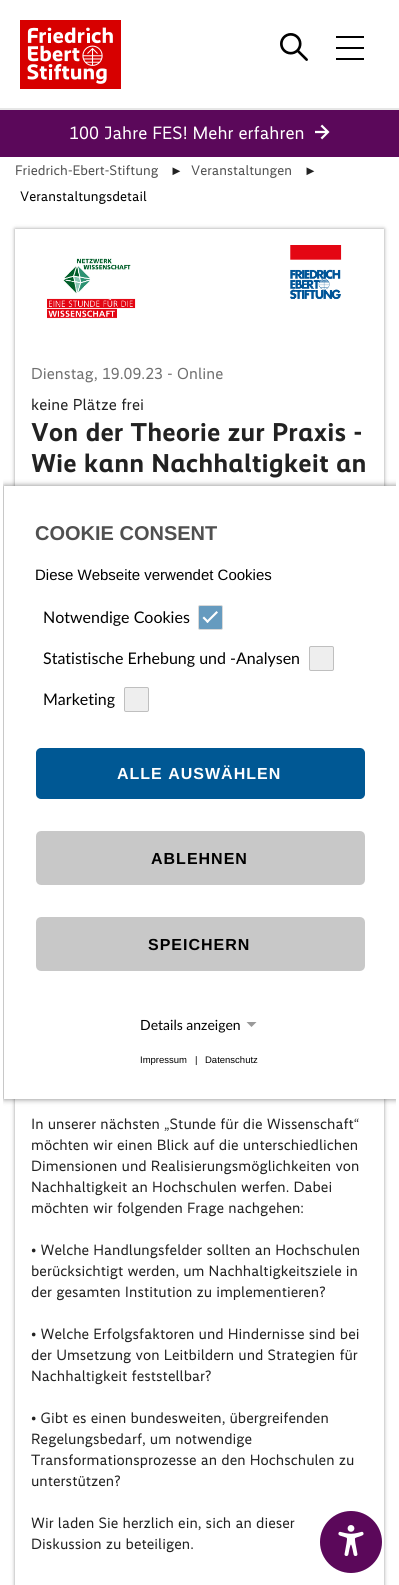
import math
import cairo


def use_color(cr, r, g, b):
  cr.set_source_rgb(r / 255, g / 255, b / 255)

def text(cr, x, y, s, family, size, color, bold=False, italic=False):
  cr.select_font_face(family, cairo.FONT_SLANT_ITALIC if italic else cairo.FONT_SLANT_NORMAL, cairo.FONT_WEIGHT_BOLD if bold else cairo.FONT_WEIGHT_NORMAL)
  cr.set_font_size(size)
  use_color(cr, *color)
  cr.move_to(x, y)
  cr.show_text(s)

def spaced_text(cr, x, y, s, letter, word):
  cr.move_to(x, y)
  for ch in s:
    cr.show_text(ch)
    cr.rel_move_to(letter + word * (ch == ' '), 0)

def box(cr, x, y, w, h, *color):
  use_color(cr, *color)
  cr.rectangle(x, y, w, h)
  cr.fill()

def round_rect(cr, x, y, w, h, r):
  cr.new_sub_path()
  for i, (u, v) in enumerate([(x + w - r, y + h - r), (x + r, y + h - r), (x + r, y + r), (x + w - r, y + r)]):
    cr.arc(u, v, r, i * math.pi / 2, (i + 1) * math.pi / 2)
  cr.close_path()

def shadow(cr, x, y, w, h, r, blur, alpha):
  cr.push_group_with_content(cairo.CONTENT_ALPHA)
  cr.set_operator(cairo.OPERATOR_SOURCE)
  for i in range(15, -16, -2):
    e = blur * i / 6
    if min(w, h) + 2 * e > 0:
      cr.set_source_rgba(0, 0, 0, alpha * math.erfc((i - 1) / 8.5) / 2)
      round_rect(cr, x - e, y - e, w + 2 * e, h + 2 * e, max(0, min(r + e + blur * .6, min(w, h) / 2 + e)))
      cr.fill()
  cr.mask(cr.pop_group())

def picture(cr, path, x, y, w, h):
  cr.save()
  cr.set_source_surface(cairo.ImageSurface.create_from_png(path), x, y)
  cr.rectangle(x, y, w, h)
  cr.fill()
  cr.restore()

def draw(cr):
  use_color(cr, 255, 255, 255)
  cr.paint()
  box(cr, 0, 108, 399, 2, 230, 230, 230)
  picture(cr, "img_01.png", 20, 20, 101, 69)
  picture(cr, "img_02.png", 280, 33, 28, 28)
  box(cr, 336, 36, 28, 2, 0, 0, 0)
  box(cr, 336, 47, 28, 2, 0, 0, 0)
  box(cr, 336, 58, 28, 2, 0, 0, 0)
  box(cr, 0, 110, 399, 47, 91, 8, 90)
  picture(cr, "img_03.png", 315, 124, 15, 16)
  cr.save()
  cr.set_fill_rule(cairo.FILL_RULE_EVEN_ODD)
  cr.new_path()
  cr.move_to(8, 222)
  cr.line_to(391, 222)
  cr.line_to(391, 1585)
  cr.line_to(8, 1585)
  cr.close_path()
  cr.move_to(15, 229)
  cr.line_to(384, 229)
  cr.line_to(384, 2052)
  cr.line_to(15, 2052)
  cr.close_path()
  cr.clip()
  use_color(cr, 0, 0, 0)
  shadow(cr, 15, 229, 369, 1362, 0, 2, 0.4)
  cr.restore()
  picture(cr, "img_04.png", 47, 245, 295, 74)
  cr.save()
  cr.rectangle(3, 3, 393, 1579)
  cr.clip()
  use_color(cr, 0, 0, 0)
  shadow(cr, 4, 486, 393, 613, 0, 3, 0.5)
  cr.restore()
  box(cr, 4, 486, 392, 613, 255, 255, 255)
  use_color(cr, 102, 155, 191)
  round_rect(cr, 198.5, 605.5, 24, 24, 1.5)
  cr.fill_preserve()
  use_color(cr, 217, 217, 217)
  cr.set_line_width(1)
  cr.stroke()
  use_color(cr, 255, 255, 255)
  cr.new_path()
  cr.move_to(216.5, 611)
  cr.line_to(218, 612.5)
  cr.line_to(207.5, 623)
  cr.line_to(206, 621.5)
  cr.close_path()
  cr.fill()
  cr.new_path()
  cr.move_to(204, 616.5)
  cr.line_to(209, 621.5)
  cr.line_to(207.5, 623)
  cr.line_to(202.5, 618)
  cr.close_path()
  cr.fill()
  use_color(cr, 238, 238, 238)
  round_rect(cr, 309.5, 646.5, 24, 24, 1.5)
  cr.fill_preserve()
  use_color(cr, 191, 191, 191)
  cr.stroke()
  use_color(cr, 238, 238, 238)
  round_rect(cr, 124.5, 687.5, 24, 24, 1.5)
  cr.fill_preserve()
  use_color(cr, 191, 191, 191)
  cr.stroke()
  use_color(cr, 0, 88, 148)
  round_rect(cr, 37, 749, 327, 49, 4)
  cr.fill_preserve()
  cr.set_line_width(2)
  cr.stroke()
  use_color(cr, 200, 200, 200)
  round_rect(cr, 37.5, 832.5, 326, 51, 3.5)
  cr.fill_preserve()
  cr.set_line_width(3)
  cr.stroke()
  round_rect(cr, 37.5, 918.5, 326, 51, 3.5)
  cr.fill_preserve()
  cr.stroke()
  use_color(cr, 153, 153, 153)
  cr.new_path()
  cr.move_to(246.5, 1022)
  cr.line_to(256.5, 1022)
  cr.line_to(251.5, 1027)
  cr.close_path()
  cr.fill()
  use_color(cr, 91, 8, 90)
  cr.arc(351, 1542, 32, 0, 2 * math.pi)
  cr.fill_preserve()
  use_color(cr, 255, 255, 255)
  cr.set_line_width(2)
  cr.stroke()
  picture(cr, "img_05.png", 338, 1525, 26, 31)
  text(cr, 69, 139, "100 Jahre FES! Mehr erfahren", "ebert", 18, (255, 255, 255))
  text(cr, 15, 175, "Friedrich-Ebert-Stiftung", "ebert", 13.9, (80, 80, 80))
  text(cr, 170, 175, "►", "Liberation Sans", 13, (34, 34, 34))
  text(cr, 191, 175, "Veranstaltungen", "ebert", 13.9, (80, 80, 80))
  text(cr, 304, 175, "►", "Liberation Sans", 13, (34, 34, 34))
  text(cr, 20, 201, "Veranstaltungsdetail", "ebert", 13.9, (0, 0, 0))
  text(cr, 31, 379, "Dienstag, 19.09.23 - Online", "ebert", 16, (111, 111, 111))
  text(cr, 31, 410, "keine Plätze frei", "ebert", 16, (34, 34, 34))
  text(cr, 31, 441, "Von der Theorie zur Praxis -", "ebert", 26, (34, 34, 34), bold=True)
  text(cr, 31, 472, "Wie kann Nachhaltigkeit an", "ebert", 26, (34, 34, 34), bold=True)
  text(cr, 31, 1129, "In unserer nächsten „Stunde für die Wissenschaft“", "ebert", 15, (34, 34, 34))
  text(cr, 31, 1150, "möchten wir einen Blick auf die unterschiedlichen", "ebert", 15, (34, 34, 34))
  text(cr, 31, 1171, "Dimensionen und Realisierungsmöglichkeiten von", "ebert", 15, (34, 34, 34))
  text(cr, 31, 1192, "Nachhaltigkeit an Hochschulen werfen. Dabei", "ebert", 15, (34, 34, 34))
  text(cr, 31, 1213, "möchten wir folgenden Frage nachgehen:", "ebert", 15, (34, 34, 34))
  text(cr, 31, 1255, "• Welche Handlungsfelder sollten an Hochschulen", "ebert", 15, (34, 34, 34))
  text(cr, 31, 1276, "berücksichtigt werden, um Nachhaltigkeitsziele in", "ebert", 15, (34, 34, 34))
  text(cr, 31, 1297, "der gesamten Institution zu implementieren?", "ebert", 15, (34, 34, 34))
  text(cr, 31, 1339, "• Welche Erfolgsfaktoren und Hindernisse sind bei", "ebert", 15, (34, 34, 34))
  text(cr, 31, 1360, "der Umsetzung von Leitbildern und Strategien für", "ebert", 15, (34, 34, 34))
  text(cr, 31, 1381, "Nachhaltigkeit feststellbar?", "ebert", 15, (34, 34, 34))
  text(cr, 31, 1423, "• Gibt es einen bundesweiten, übergreifenden", "ebert", 15, (34, 34, 34))
  text(cr, 31, 1444, "Regelungsbedarf, um notwendige", "ebert", 15, (34, 34, 34))
  text(cr, 31, 1465, "Transformationsprozesse an den Hochschulen zu", "ebert", 15, (34, 34, 34))
  text(cr, 31, 1486, "unterstützen?", "ebert", 15, (34, 34, 34))
  text(cr, 31, 1528, "Wir laden Sie herzlich ein, sich an dieser", "ebert", 15, (34, 34, 34))
  text(cr, 31, 1549, "Diskussion zu beteiligen.", "ebert", 15, (34, 34, 34))
  text(cr, 35, 540, "COOKIE CONSENT", "Liberation Sans", 20, (80, 80, 80), bold=True)
  text(cr, 35, 580, "Diese Webseite verwendet Cookies", "Liberation Sans", 15, (0, 0, 0))
  text(cr, 43, 623, "Notwendige Cookies", "Lato", 16, (0, 0, 0))
  text(cr, 43, 664, "Statistische Erhebung und -Analysen", "Lato", 16, (0, 0, 0))
  text(cr, 43, 705, "Marketing", "Lato", 16, (0, 0, 0))
  cr.select_font_face("Liberation Sans", cairo.FONT_SLANT_NORMAL, cairo.FONT_WEIGHT_BOLD)
  use_color(cr, 255, 255, 255)
  spaced_text(cr, 117, 779, "ALLE AUSWÄHLEN", 1, 0)
  use_color(cr, 0, 0, 0)
  spaced_text(cr, 151, 864, "ABLEHNEN", 1, 0)
  spaced_text(cr, 148, 950, "SPEICHERN", 1, 0)
  text(cr, 140, 1030, "Details anzeigen", "Lato", 14, (0, 0, 0))
  text(cr, 140, 1063, "Impressum", "Liberation Sans", 9.5, (0, 0, 0))
  text(cr, 195, 1063, "|", "Liberation Sans", 9.5, (0, 0, 0))
  text(cr, 205, 1063, "Datenschutz", "Liberation Sans", 9.5, (0, 0, 0))


surface = cairo.ImageSurface(cairo.FORMAT_RGB24, 399, 1585)
cr = cairo.Context(surface)
options = cairo.FontOptions()
options.set_hint_metrics(cairo.HINT_METRICS_OFF)
options.set_hint_style(cairo.HINT_STYLE_NONE)
cr.set_font_options(options)
cr.set_miter_limit(4)
draw(cr)
surface.write_to_png("out.png")
